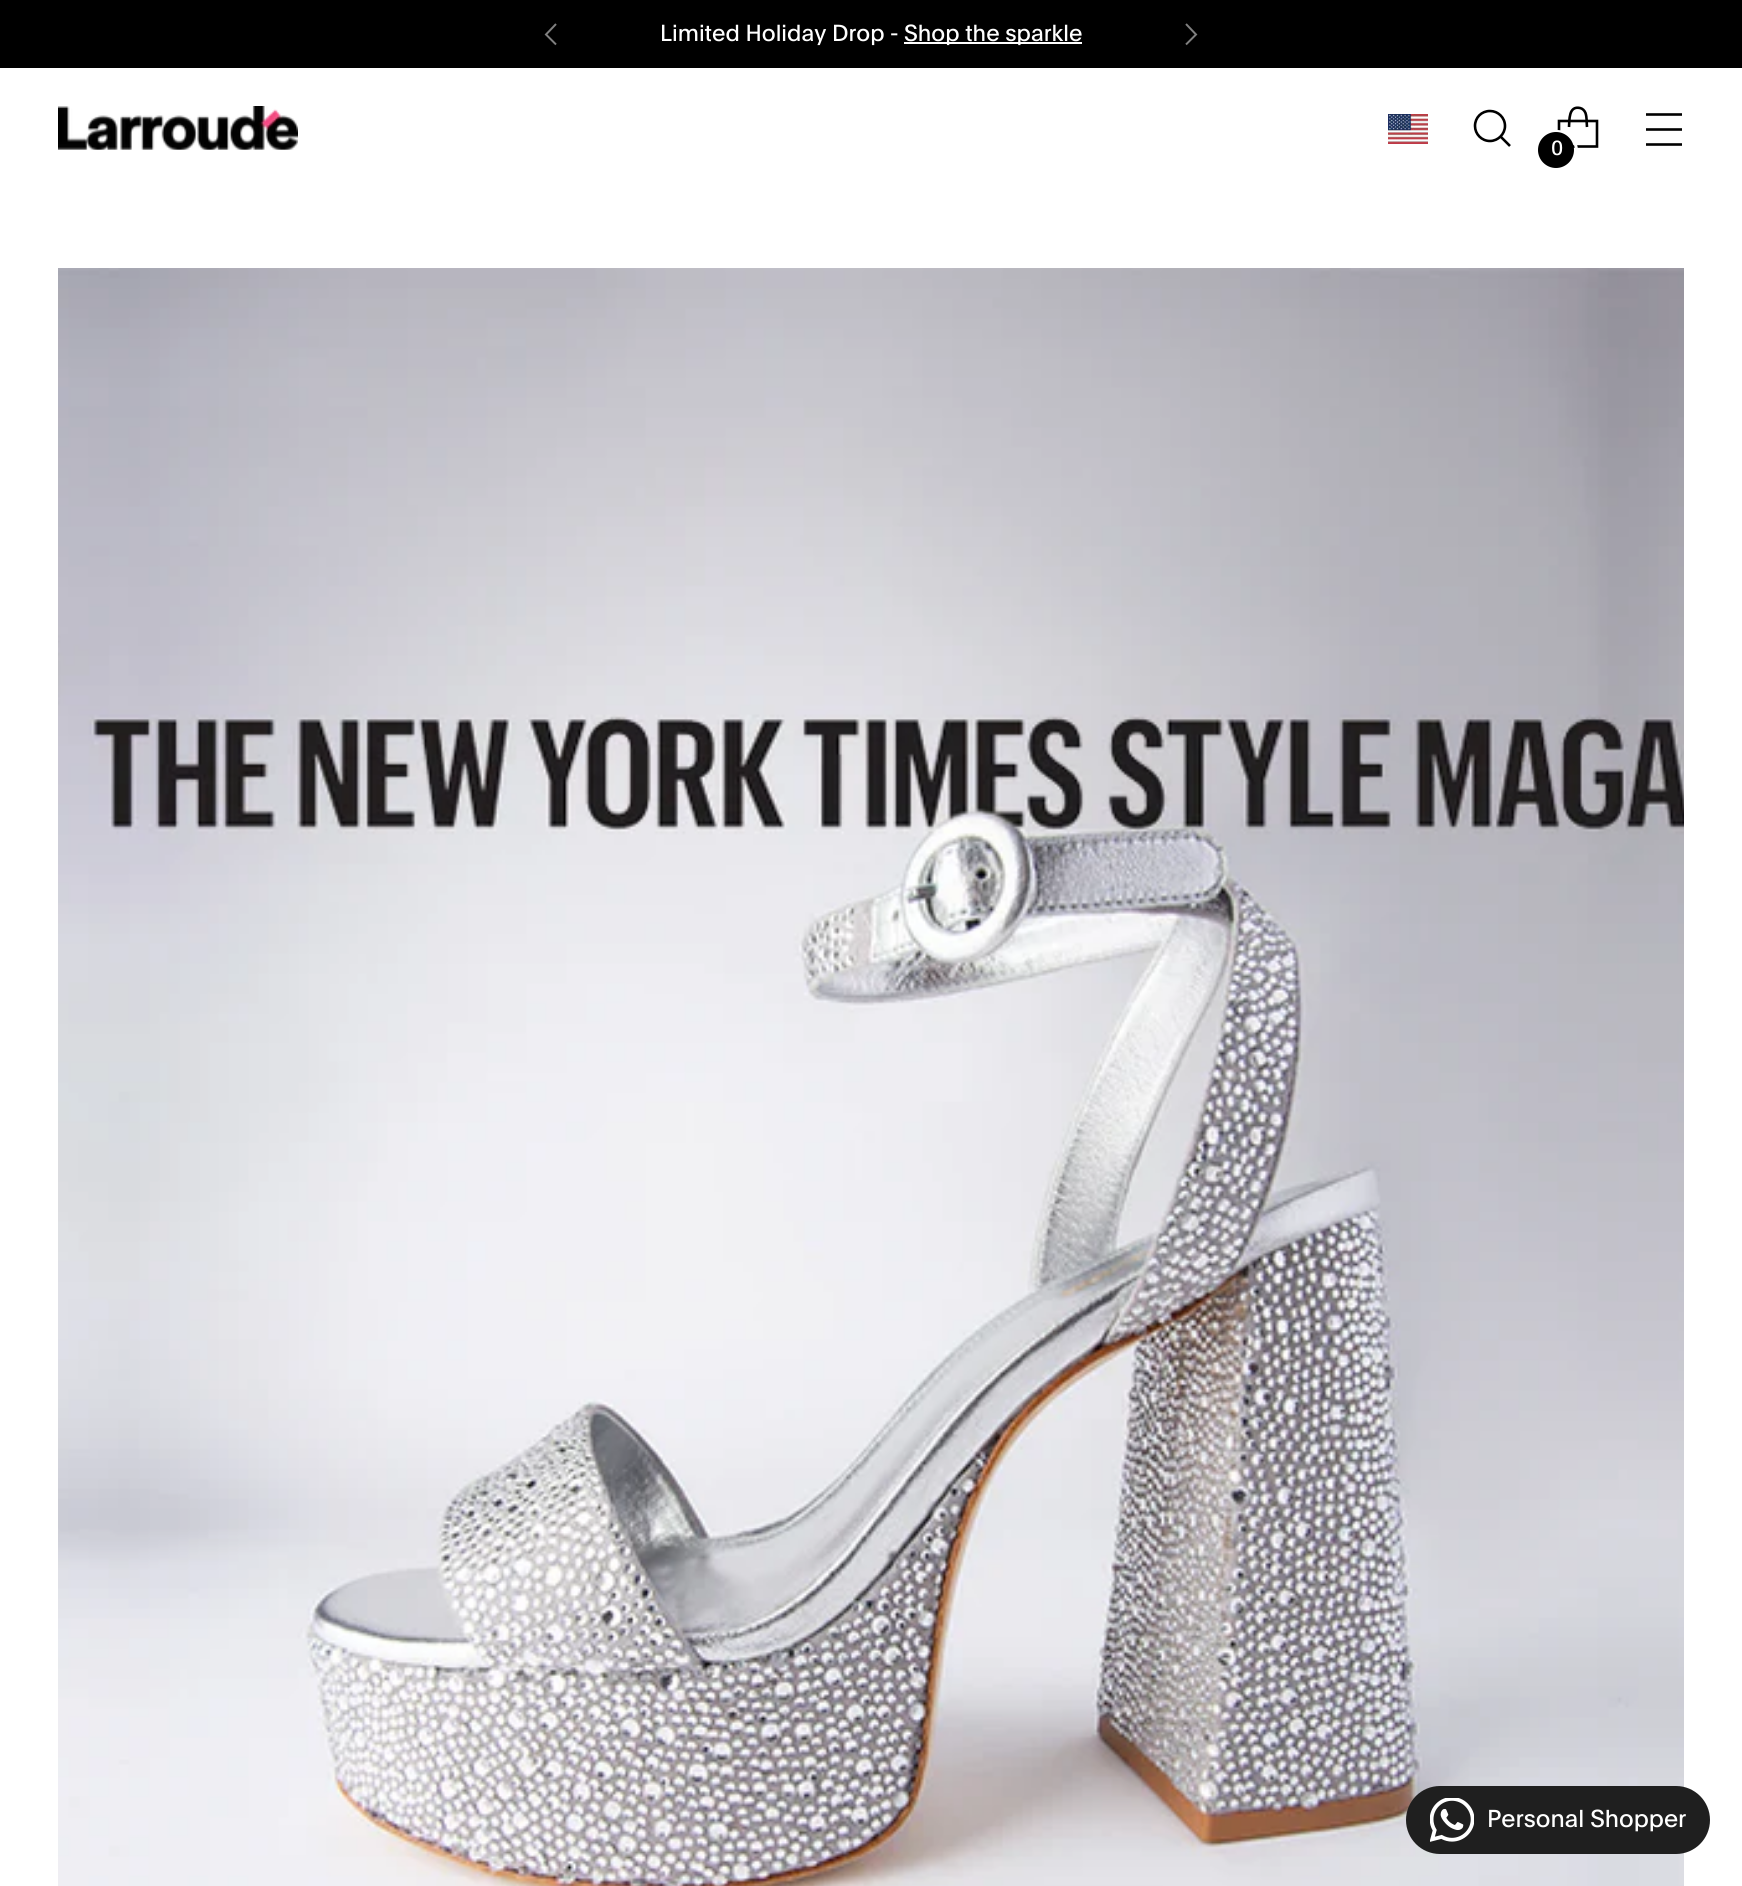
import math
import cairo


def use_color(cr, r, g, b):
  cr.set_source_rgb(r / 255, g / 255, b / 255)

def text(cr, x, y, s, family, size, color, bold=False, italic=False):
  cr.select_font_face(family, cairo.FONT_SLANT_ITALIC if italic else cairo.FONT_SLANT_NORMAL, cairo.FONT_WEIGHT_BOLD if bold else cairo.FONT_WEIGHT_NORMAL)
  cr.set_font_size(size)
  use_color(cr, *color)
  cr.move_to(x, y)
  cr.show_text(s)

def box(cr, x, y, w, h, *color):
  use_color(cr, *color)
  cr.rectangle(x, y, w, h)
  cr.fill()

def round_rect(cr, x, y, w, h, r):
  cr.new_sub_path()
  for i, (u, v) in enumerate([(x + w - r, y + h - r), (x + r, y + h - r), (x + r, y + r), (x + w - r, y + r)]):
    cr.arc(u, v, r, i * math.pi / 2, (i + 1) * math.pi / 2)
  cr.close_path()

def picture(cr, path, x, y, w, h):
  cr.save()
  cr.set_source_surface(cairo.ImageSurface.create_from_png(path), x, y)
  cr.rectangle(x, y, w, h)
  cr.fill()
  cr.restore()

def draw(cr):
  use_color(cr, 255, 255, 255)
  cr.paint()
  box(cr, 0, 0, 1742, 68, 0, 0, 0)
  cr.new_path()
  cr.move_to(556, 24)
  cr.line_to(546, 34.5)
  cr.line_to(556, 44.5)
  use_color(cr, 128, 128, 128)
  cr.stroke()
  cr.new_path()
  cr.move_to(1186, 44.5)
  cr.line_to(1196, 34.5)
  cr.line_to(1186, 24)
  cr.stroke()
  box(cr, 904, 42, 178, 2, 255, 255, 255)
  picture(cr, "img_01.png", 58, 106, 240, 44)
  picture(cr, "img_02.png", 1388, 114, 40, 30)
  cr.new_path()
  cr.move_to(1490, 141)
  cr.curve_to(1498, 141, 1505, 134, 1505, 126)
  cr.curve_to(1505, 117.5, 1498, 111, 1490, 111)
  cr.curve_to(1481.5, 111, 1475, 117.5, 1475, 126)
  cr.curve_to(1475, 134, 1481.5, 141, 1490, 141)
  cr.close_path()
  use_color(cr, 0, 0, 0)
  cr.set_line_width(2.6)
  cr.set_line_cap(cairo.LINE_CAP_ROUND)
  cr.stroke()
  cr.new_path()
  cr.move_to(1500.5, 136.5)
  cr.line_to(1510, 146)
  cr.set_line_cap(cairo.LINE_CAP_BUTT)
  cr.stroke()
  cr.new_path()
  cr.move_to(1646, 129.5)
  cr.line_to(1682, 129.5)
  cr.move_to(1646, 114.5)
  cr.line_to(1682, 114.5)
  cr.move_to(1646, 144.5)
  cr.line_to(1682, 144.5)
  cr.stroke()
  cr.new_path()
  cr.move_to(1587, 127)
  cr.curve_to(1586.5, 122.5, 1587, 117.5, 1585.5, 113)
  cr.curve_to(1584.5, 110.5, 1582.5, 108.5, 1580, 108)
  cr.curve_to(1568.5, 105.5, 1569.5, 120, 1569, 127)
  cr.set_line_join(cairo.LINE_JOIN_BEVEL)
  cr.stroke()
  cr.new_path()
  cr.move_to(1597, 146.5)
  cr.line_to(1597, 121)
  cr.line_to(1559, 121)
  cr.line_to(1559, 146.5)
  cr.close_path()
  cr.set_line_join(cairo.LINE_JOIN_MITER)
  cr.stroke()
  cr.arc(1557, 151, 19.5, 0, 2 * math.pi)
  use_color(cr, 255, 255, 255)
  cr.set_line_width(3)
  cr.stroke()
  use_color(cr, 0, 0, 0)
  cr.arc(1556, 150, 18, 0, 2 * math.pi)
  cr.fill()
  picture(cr, "img_03.png", 58, 268, 1626, 1618)
  use_color(cr, 31, 31, 31)
  round_rect(cr, 1406, 1786, 304, 68, 34)
  cr.fill()
  picture(cr, "img_04.png", 1430, 1798, 44, 44)
  text(cr, 660, 41, "Limited Holiday Drop -", "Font", 22.75, (255, 255, 255))
  text(cr, 904, 41, "Shop the sparkle", "Font", 22.75, (255, 255, 255))
  text(cr, 1551, 155, "0", "Font", 20, (255, 255, 255))
  text(cr, 1487, 1827, "Personal Shopper", "Font", 24, (255, 255, 255))


surface = cairo.ImageSurface(cairo.FORMAT_RGB24, 1742, 1886)
cr = cairo.Context(surface)
options = cairo.FontOptions()
options.set_hint_metrics(cairo.HINT_METRICS_OFF)
options.set_hint_style(cairo.HINT_STYLE_NONE)
cr.set_font_options(options)
cr.set_miter_limit(4)
draw(cr)
surface.write_to_png("out.png")
